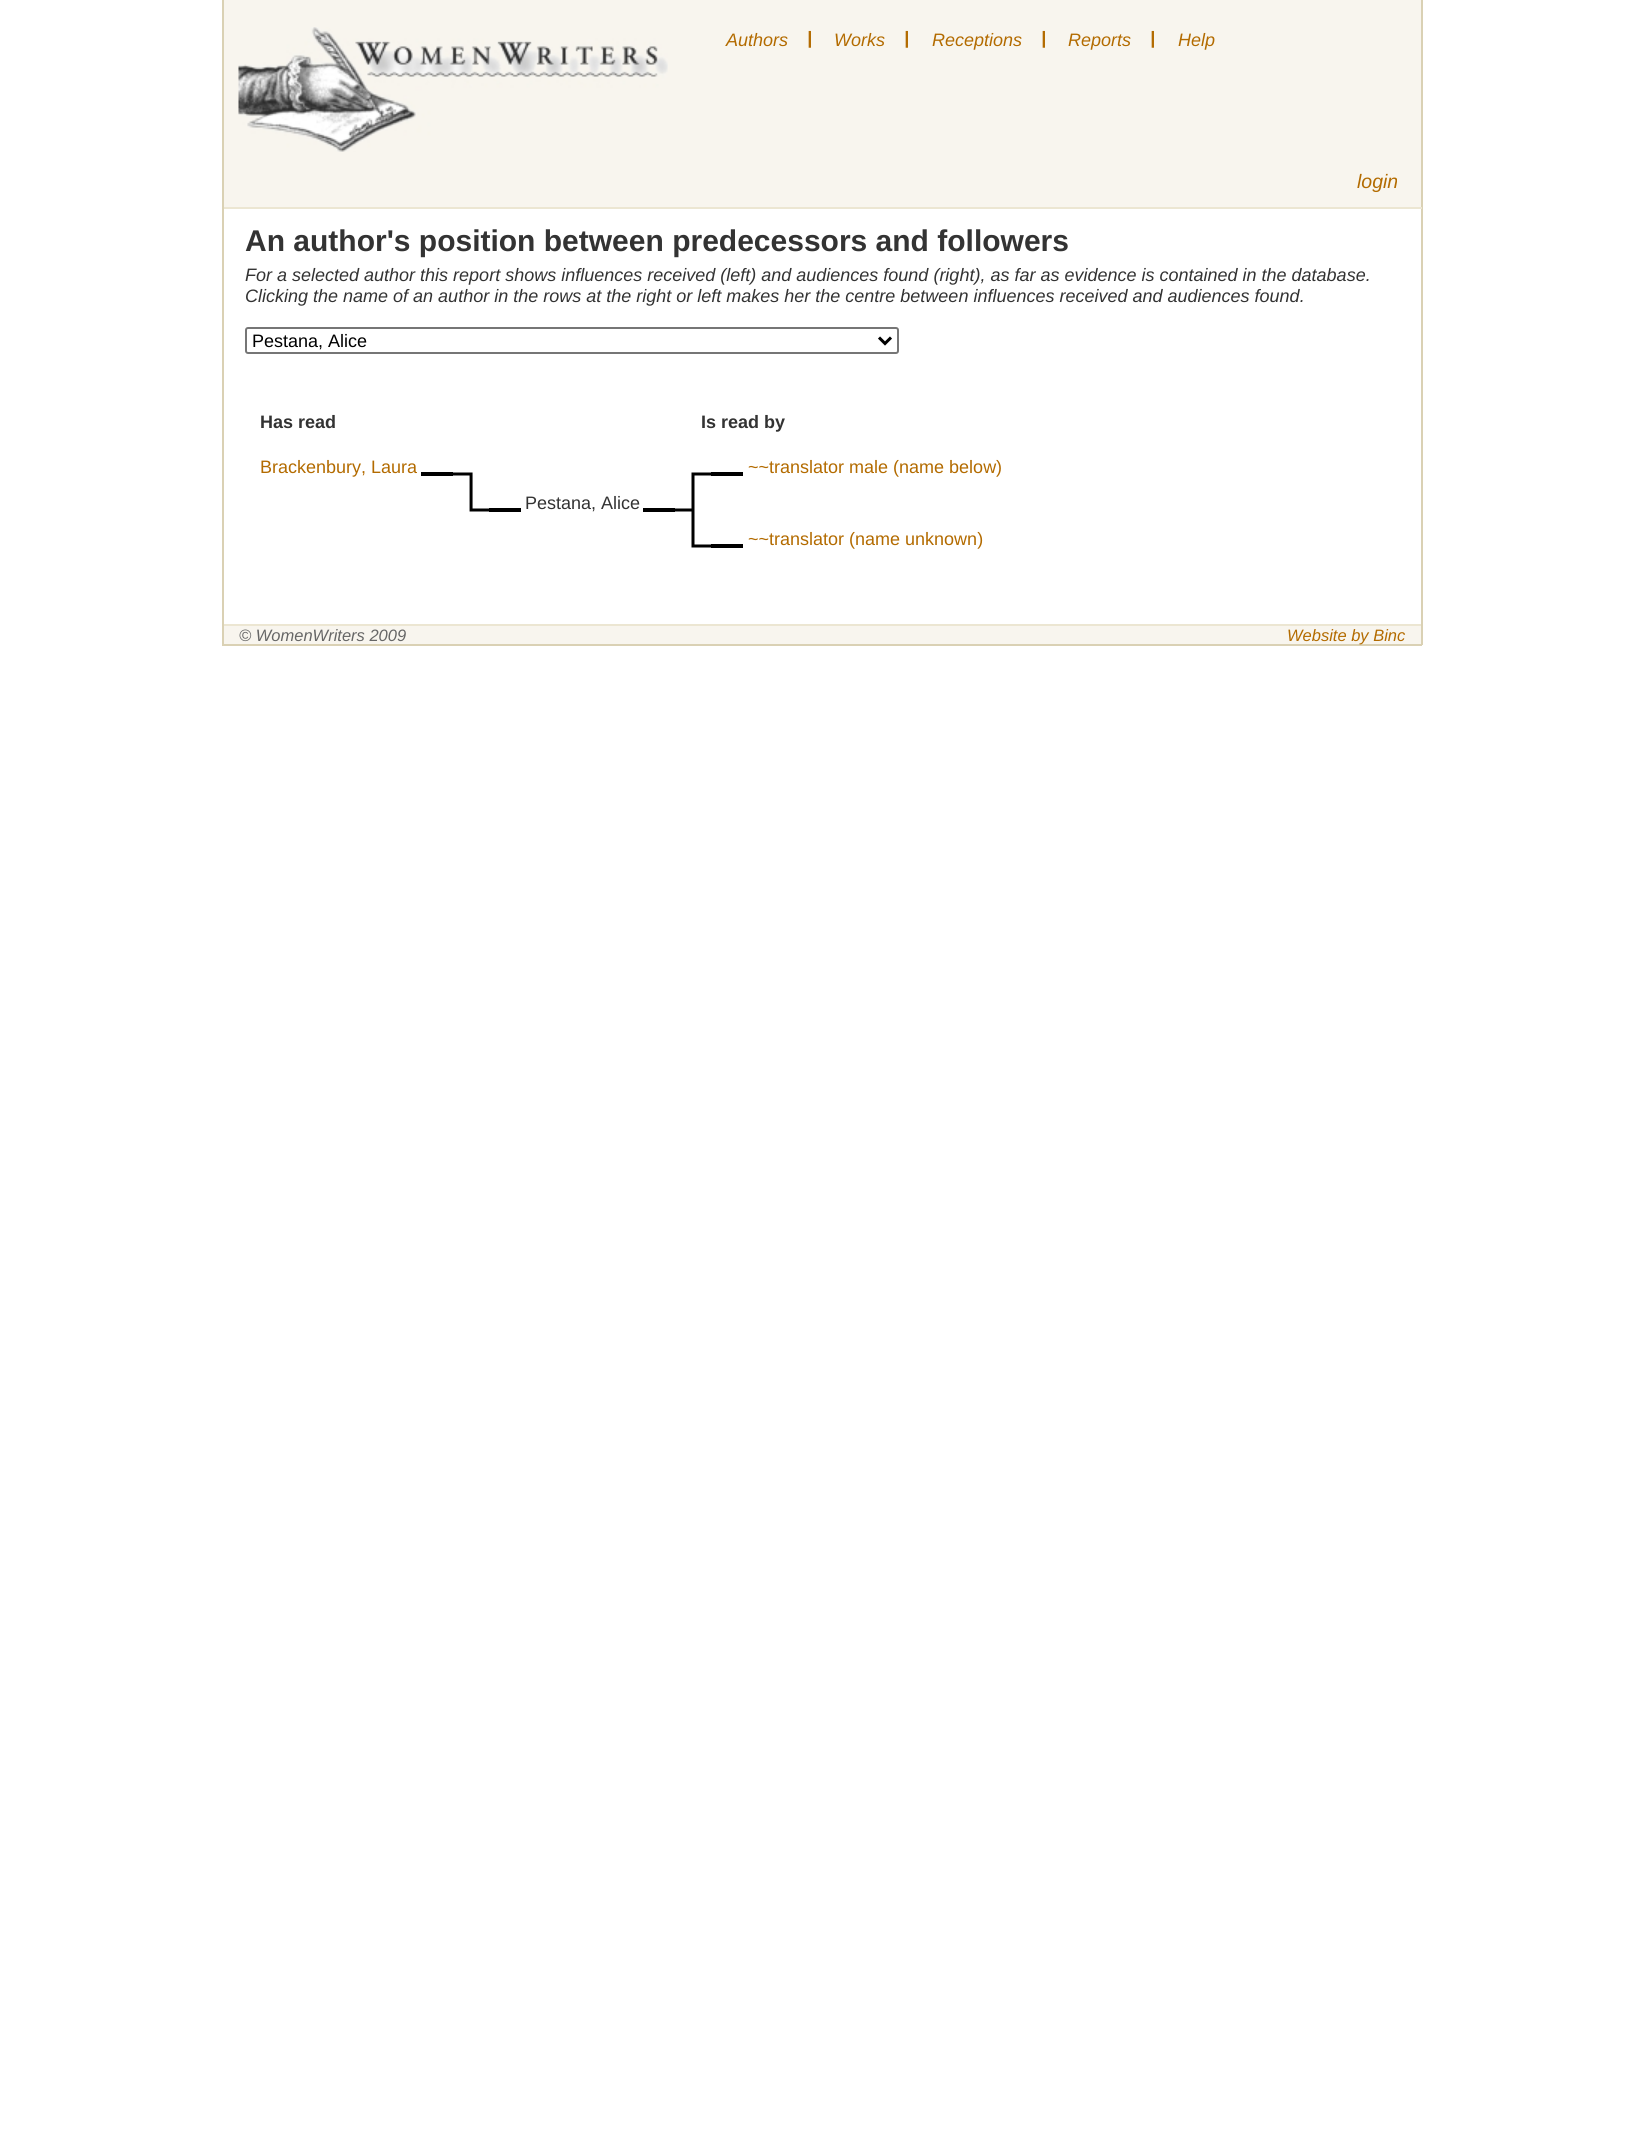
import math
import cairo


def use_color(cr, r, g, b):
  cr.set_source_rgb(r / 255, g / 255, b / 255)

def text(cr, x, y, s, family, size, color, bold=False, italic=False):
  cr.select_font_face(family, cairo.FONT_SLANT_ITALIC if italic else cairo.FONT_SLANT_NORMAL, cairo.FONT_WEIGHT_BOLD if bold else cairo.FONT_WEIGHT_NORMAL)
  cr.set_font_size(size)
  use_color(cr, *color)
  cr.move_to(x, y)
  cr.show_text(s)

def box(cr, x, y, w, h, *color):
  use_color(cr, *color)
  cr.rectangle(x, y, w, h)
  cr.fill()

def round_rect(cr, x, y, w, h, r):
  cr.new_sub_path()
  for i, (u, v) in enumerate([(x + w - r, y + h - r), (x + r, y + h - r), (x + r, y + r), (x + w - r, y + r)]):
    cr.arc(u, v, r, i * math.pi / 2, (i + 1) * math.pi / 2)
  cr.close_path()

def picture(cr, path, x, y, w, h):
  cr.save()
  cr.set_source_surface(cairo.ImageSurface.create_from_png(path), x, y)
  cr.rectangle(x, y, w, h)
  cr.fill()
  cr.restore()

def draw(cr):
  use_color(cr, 255, 255, 255)
  cr.paint()
  box(cr, 224, 0, 1197, 207, 248, 245, 238)
  box(cr, 1421, 0, 2, 624, 218, 209, 180)
  box(cr, 222, 207, 1200, 2, 236, 230, 210)
  box(cr, 222, 0, 2, 624, 218, 209, 180)
  picture(cr, "img_01.png", 238, 27, 430, 125)
  round_rect(cr, 246, 328, 652, 25, 2)
  use_color(cr, 118, 118, 118)
  cr.stroke()
  cr.new_path()
  cr.move_to(879, 337.5)
  cr.line_to(885, 343.5)
  cr.line_to(891, 337.5)
  use_color(cr, 0, 0, 0)
  cr.set_line_width(3)
  cr.stroke()
  box(cr, 421, 472, 32, 4, 0, 0, 0)
  picture(cr, "img_02.png", 453, 472, 20, 20)
  picture(cr, "img_03.png", 469, 492, 20, 20)
  box(cr, 489, 508, 32, 4, 0, 0, 0)
  box(cr, 643, 508, 32, 4, 0, 0, 0)
  picture(cr, "img_04.png", 691, 472, 20, 20)
  box(cr, 711, 472, 32, 4, 0, 0, 0)
  picture(cr, "img_05.png", 675, 492, 20, 36)
  picture(cr, "img_06.png", 691, 528, 20, 20)
  box(cr, 711, 544, 32, 4, 0, 0, 0)
  box(cr, 224, 626, 1197, 18, 248, 245, 238)
  box(cr, 222, 624, 1200, 2, 236, 230, 210)
  box(cr, 1421, 624, 2, 21, 218, 209, 180)
  box(cr, 222, 644, 1200, 2, 218, 209, 180)
  box(cr, 222, 624, 2, 21, 218, 209, 180)
  text(cr, 726, 46, "Authors", "Liberation Sans", 18, (179, 107, 0), italic=True)
  text(cr, 807, 44, "|", "Liberation Sans", 18, (179, 107, 0), bold=True, italic=True)
  text(cr, 834, 46, "Works", "Liberation Sans", 18, (179, 107, 0), italic=True)
  text(cr, 904, 44, "|", "Liberation Sans", 18, (179, 107, 0), bold=True, italic=True)
  text(cr, 932, 46, "Receptions", "Liberation Sans", 18, (179, 107, 0), italic=True)
  text(cr, 1041, 44, "|", "Liberation Sans", 18, (179, 107, 0), bold=True, italic=True)
  text(cr, 1068, 46, "Reports", "Liberation Sans", 18, (179, 107, 0), italic=True)
  text(cr, 1150, 44, "|", "Liberation Sans", 18, (179, 107, 0), bold=True, italic=True)
  text(cr, 1178, 46, "Help", "Liberation Sans", 18, (179, 107, 0), italic=True)
  text(cr, 1357, 188, "login", "Liberation Sans", 19.5, (179, 107, 0), italic=True)
  text(cr, 245, 251, "An author's position between predecessors and followers", "Liberation Sans", 30, (51, 51, 51), bold=True)
  text(cr, 245, 281, "For a selected author this report shows influences received (left) and audiences found (right), as far as evidence is contained in the database.", "Liberation Sans", 18, (51, 51, 51), italic=True)
  text(cr, 245, 302, "Clicking the name of an author in the rows at the right or left makes her the centre between influences received and audiences found.", "Liberation Sans", 18, (51, 51, 51), italic=True)
  text(cr, 252, 347, "Pestana, Alice", "Liberation Sans", 18, (0, 0, 0))
  text(cr, 260, 428, "Has read", "Liberation Sans", 18, (51, 51, 51), bold=True)
  text(cr, 701, 428, "Is read by", "Liberation Sans", 18, (51, 51, 51), bold=True)
  text(cr, 260, 473, "Brackenbury, Laura", "Liberation Sans", 18, (179, 107, 0))
  text(cr, 525, 509, "Pestana, Alice", "Liberation Sans", 18, (51, 51, 51))
  text(cr, 748, 473, "~~translator male (name below)", "Liberation Sans", 18, (179, 107, 0))
  text(cr, 748, 545, "~~translator (name unknown)", "Liberation Sans", 18, (179, 107, 0))
  text(cr, 239, 641, "© WomenWriters 2009", "Liberation Sans", 16.5, (102, 102, 102), italic=True)
  text(cr, 1287, 641, "Website by Binc", "Liberation Sans", 16.5, (179, 107, 0), italic=True)


surface = cairo.ImageSurface(cairo.FORMAT_RGB24, 1643, 2140)
cr = cairo.Context(surface)
options = cairo.FontOptions()
options.set_hint_metrics(cairo.HINT_METRICS_OFF)
options.set_hint_style(cairo.HINT_STYLE_NONE)
cr.set_font_options(options)
cr.set_miter_limit(4)
draw(cr)
surface.write_to_png("out.png")
